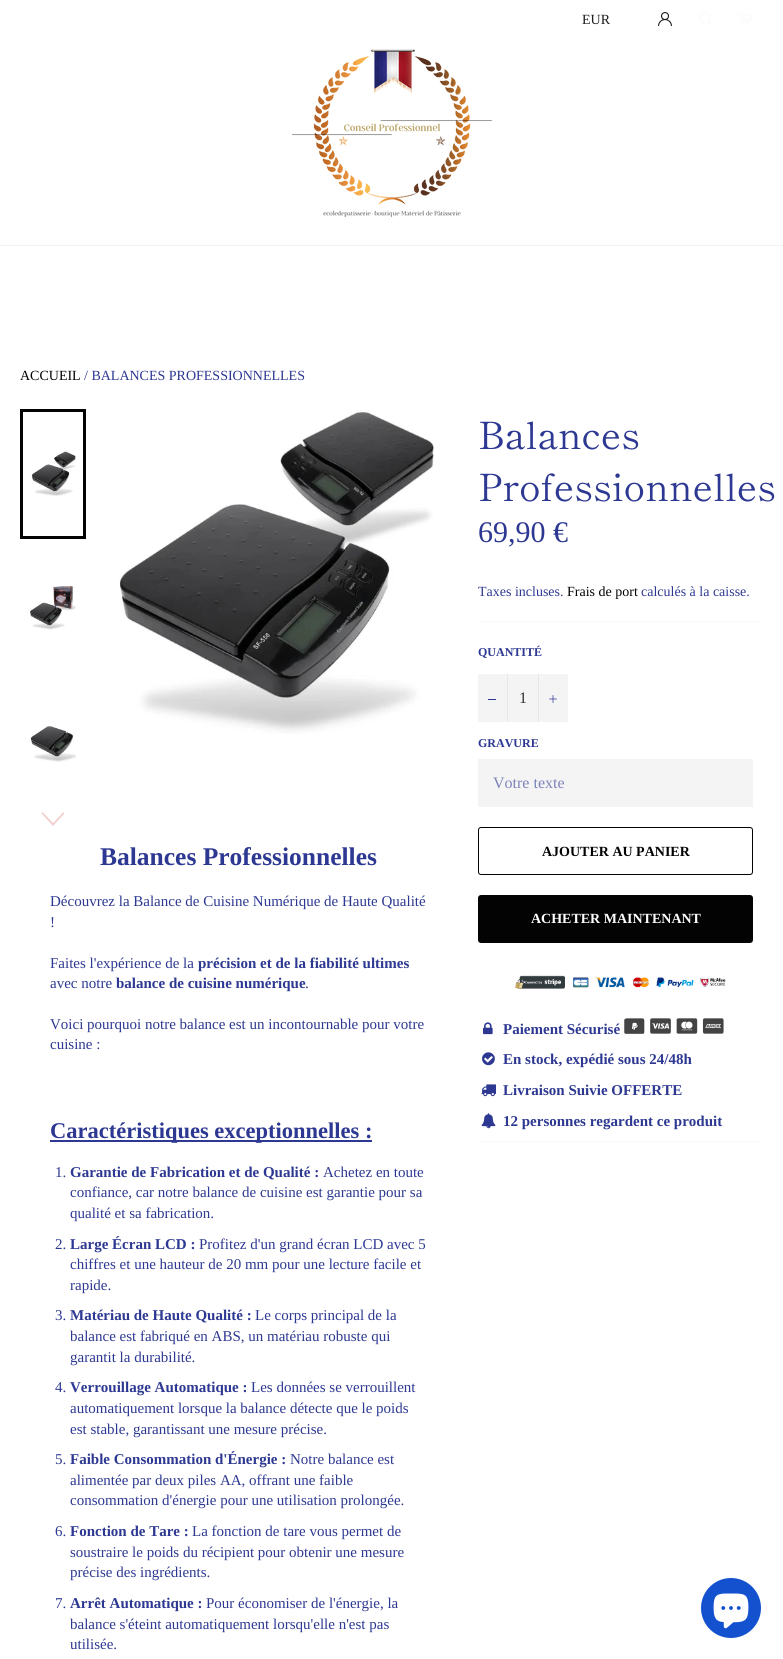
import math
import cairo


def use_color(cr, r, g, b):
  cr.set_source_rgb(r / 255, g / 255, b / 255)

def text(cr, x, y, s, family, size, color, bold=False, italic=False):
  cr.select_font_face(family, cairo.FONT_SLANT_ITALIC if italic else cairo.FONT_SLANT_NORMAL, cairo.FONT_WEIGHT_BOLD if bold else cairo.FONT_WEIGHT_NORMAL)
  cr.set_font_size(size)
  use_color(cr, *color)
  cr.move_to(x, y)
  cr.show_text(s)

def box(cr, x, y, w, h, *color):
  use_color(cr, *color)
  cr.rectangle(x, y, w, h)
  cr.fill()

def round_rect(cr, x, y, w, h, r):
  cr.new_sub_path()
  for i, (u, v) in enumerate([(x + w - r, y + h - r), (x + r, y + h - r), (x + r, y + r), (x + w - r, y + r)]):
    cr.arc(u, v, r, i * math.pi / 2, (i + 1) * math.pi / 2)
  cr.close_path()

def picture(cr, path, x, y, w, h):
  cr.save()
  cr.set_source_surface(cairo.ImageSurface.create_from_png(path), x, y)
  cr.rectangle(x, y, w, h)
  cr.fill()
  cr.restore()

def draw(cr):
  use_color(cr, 255, 255, 255)
  cr.paint()
  picture(cr, "img_01.png", 658, 12, 14, 14)
  picture(cr, "img_02.png", 699, 12, 13, 13)
  picture(cr, "img_03.png", 738, 13, 14, 12)
  picture(cr, "img_04.png", 292, 49, 200, 169)
  box(cr, 0, 245, 783, 1, 242, 242, 242)
  box(cr, 478, 621, 285, 1, 250, 250, 250)
  box(cr, 478, 674, 90, 48, 244, 244, 244)
  box(cr, 507, 674, 1, 48, 231, 231, 231)
  box(cr, 488, 699, 8, 1, 45, 56, 146)
  box(cr, 538, 674, 1, 48, 231, 231, 231)
  picture(cr, "img_05.png", 549, 695, 8, 8)
  box(cr, 478, 759, 275, 48, 244, 244, 244)
  round_rect(cr, 478.5, 827.5, 274, 47, 2.5)
  use_color(cr, 3, 3, 3)
  cr.set_line_width(1)
  cr.stroke()
  round_rect(cr, 478, 895, 275, 48, 3)
  cr.fill()
  picture(cr, "img_06.png", 515, 975, 211, 14)
  picture(cr, "img_07.png", 483, 1022, 10, 13)
  picture(cr, "img_08.png", 624, 1018, 100, 16)
  picture(cr, "img_09.png", 482, 1052, 13, 14)
  picture(cr, "img_10.png", 481, 1084, 15, 13)
  picture(cr, "img_11.png", 481, 1113, 15, 16)
  box(cr, 478, 1141, 285, 1, 250, 250, 250)
  picture(cr, "img_12.png", 31, 451, 45, 45)
  cr.rectangle(21.5, 410.5, 63, 127)
  use_color(cr, 3, 3, 3)
  cr.set_line_width(3)
  cr.stroke()
  picture(cr, "img_13.png", 30, 586, 46, 44)
  picture(cr, "img_14.png", 30, 726, 46, 36)
  use_color(cr, 241, 208, 209)
  cr.new_path()
  cr.move_to(63.5, 812)
  cr.line_to(64.5, 813.5)
  cr.line_to(53, 826)
  cr.line_to(41.5, 813.5)
  cr.line_to(42.5, 812)
  cr.line_to(53, 823)
  cr.close_path()
  cr.fill()
  picture(cr, "img_15.png", 119, 412, 315, 322)
  box(cr, 50, 1140, 322, 2, 45, 56, 146)
  use_color(cr, 20, 81, 207)
  cr.arc(731, 1608, 30, 0, 2 * math.pi)
  cr.fill()
  picture(cr, "img_16.png", 713, 1593, 36, 36)
  text(cr, 582, 24, "EUR", "Liberation Serif", 14, (28, 29, 29))
  text(cr, 20, 380, "ACCUEIL", "Liberation Serif", 14, (3, 3, 3))
  text(cr, 84, 380, "/ BALANCES PROFESSIONNELLES", "Liberation Serif", 14, (45, 56, 146))
  text(cr, 478, 449, "Balances", "Shippori Mincho", 37.5, (45, 56, 146))
  text(cr, 478, 501, "Professionnelles", "Shippori Mincho", 37.5, (45, 56, 146))
  text(cr, 478, 542, "69,90 €", "Liberation Serif", 30, (45, 56, 146))
  text(cr, 478, 596, "Taxes incluses.", "Liberation Serif", 14, (45, 56, 146))
  text(cr, 567, 596, "Frais de port", "Liberation Serif", 14, (3, 3, 3))
  text(cr, 641, 596, "calculés à la caisse.", "Liberation Serif", 14, (45, 56, 146))
  text(cr, 478, 656, "QUANTITÉ", "Liberation Serif", 12, (45, 56, 146), bold=True)
  text(cr, 519, 703, "1", "Liberation Serif", 16, (51, 51, 51))
  text(cr, 478, 747, "GRAVURE", "Liberation Serif", 12, (45, 56, 146), bold=True)
  text(cr, 493, 788, "Votre texte", "Liberation Serif", 16, (125, 131, 185))
  text(cr, 542, 856, "AJOUTER AU PANIER", "Liberation Serif", 14, (3, 3, 3), bold=True)
  text(cr, 531, 923, "ACHETER MAINTENANT", "Liberation Serif", 14, (255, 253, 253), bold=True)
  text(cr, 503, 1034, "Paiement Sécurisé", "Liberation Serif", 15, (45, 56, 146), bold=True)
  text(cr, 503, 1064, "En stock, expédié sous 24/48h", "Liberation Serif", 15, (45, 56, 146), bold=True)
  text(cr, 503, 1095, "Livraison Suivie OFFERTE", "Liberation Serif", 15, (45, 56, 146), bold=True)
  text(cr, 503, 1126, "12 personnes regardent ce produit", "Liberation Serif", 15, (45, 56, 146), bold=True)
  text(cr, 100, 865, "Balances Professionnelles", "Liberation Serif", 25.5, (45, 56, 146), bold=True)
  text(cr, 50, 906, "Découvrez la Balance de Cuisine Numérique de Haute Qualité", "Liberation Serif", 15, (45, 56, 146))
  text(cr, 50, 927, "!", "Liberation Serif", 15, (45, 56, 146))
  text(cr, 50, 968, "Faites l'expérience de la", "Liberation Serif", 15, (45, 56, 146))
  text(cr, 198, 968, "précision et de la fiabilité ultimes", "Liberation Serif", 15, (45, 56, 146), bold=True)
  text(cr, 50, 988, "avec notre", "Liberation Serif", 15, (45, 56, 146))
  text(cr, 116, 988, "balance de cuisine numérique", "Liberation Serif", 15, (45, 56, 146), bold=True)
  text(cr, 305, 988, ".", "Liberation Serif", 15, (45, 56, 146))
  text(cr, 50, 1029, "Voici pourquoi notre balance est un incontournable pour votre", "Liberation Serif", 15, (45, 56, 146))
  text(cr, 50, 1049, "cuisine :", "Liberation Serif", 15, (45, 56, 146))
  text(cr, 50, 1138, "Caractéristiques exceptionnelles :", "Liberation Serif", 22.5, (45, 56, 146), bold=True)
  text(cr, 55, 1177, "1.", "Liberation Serif", 15, (45, 56, 146))
  text(cr, 70, 1177, "Garantie de Fabrication et de Qualité :", "Liberation Serif", 15, (45, 56, 146), bold=True)
  text(cr, 323, 1177, "Achetez en toute", "Liberation Serif", 15, (45, 56, 146))
  text(cr, 70, 1197, "confiance, car notre balance de cuisine est garantie pour sa", "Liberation Serif", 15, (45, 56, 146))
  text(cr, 70, 1218, "qualité et sa fabrication.", "Liberation Serif", 15, (45, 56, 146))
  text(cr, 55, 1249, "2.", "Liberation Serif", 15, (45, 56, 146))
  text(cr, 70, 1249, "Large Écran LCD :", "Liberation Serif", 15, (45, 56, 146), bold=True)
  text(cr, 199, 1249, "Profitez d'un grand écran LCD avec 5", "Liberation Serif", 15, (45, 56, 146))
  text(cr, 70, 1269, "chiffres et une hauteur de 20 mm pour une lecture facile et", "Liberation Serif", 15, (45, 56, 146))
  text(cr, 70, 1290, "rapide.", "Liberation Serif", 15, (45, 56, 146))
  text(cr, 55, 1320, "3.", "Liberation Serif", 15, (45, 56, 146))
  text(cr, 70, 1320, "Matériau de Haute Qualité :", "Liberation Serif", 15, (45, 56, 146), bold=True)
  text(cr, 255, 1320, "Le corps principal de la", "Liberation Serif", 15, (45, 56, 146))
  text(cr, 70, 1341, "balance est fabriqué en ABS, un matériau robuste qui", "Liberation Serif", 15, (45, 56, 146))
  text(cr, 70, 1362, "garantit la durabilité.", "Liberation Serif", 15, (45, 56, 146))
  text(cr, 55, 1392, "4.", "Liberation Serif", 15, (45, 56, 146))
  text(cr, 70, 1392, "Verrouillage Automatique :", "Liberation Serif", 15, (45, 56, 146), bold=True)
  text(cr, 251, 1392, "Les données se verrouillent", "Liberation Serif", 15, (45, 56, 146))
  text(cr, 70, 1413, "automatiquement lorsque la balance détecte que le poids", "Liberation Serif", 15, (45, 56, 146))
  text(cr, 70, 1434, "est stable, garantissant une mesure précise.", "Liberation Serif", 15, (45, 56, 146))
  text(cr, 55, 1464, "5.", "Liberation Serif", 15, (45, 56, 146))
  text(cr, 70, 1464, "Faible Consommation d'Énergie :", "Liberation Serif", 15, (45, 56, 146), bold=True)
  text(cr, 290, 1464, "Notre balance est", "Liberation Serif", 15, (45, 56, 146))
  text(cr, 70, 1485, "alimentée par deux piles AA, offrant une faible", "Liberation Serif", 15, (45, 56, 146))
  text(cr, 70, 1505, "consommation d'énergie pour une utilisation prolongée.", "Liberation Serif", 15, (45, 56, 146))
  text(cr, 55, 1536, "6.", "Liberation Serif", 15, (45, 56, 146))
  text(cr, 70, 1536, "Fonction de Tare :", "Liberation Serif", 15, (45, 56, 146), bold=True)
  text(cr, 192, 1536, "La fonction de tare vous permet de", "Liberation Serif", 15, (45, 56, 146))
  text(cr, 70, 1557, "soustraire le poids du récipient pour obtenir une mesure", "Liberation Serif", 15, (45, 56, 146))
  text(cr, 70, 1577, "précise des ingrédients.", "Liberation Serif", 15, (45, 56, 146))
  text(cr, 55, 1608, "7.", "Liberation Serif", 15, (45, 56, 146))
  text(cr, 70, 1608, "Arrêt Automatique :", "Liberation Serif", 15, (45, 56, 146), bold=True)
  text(cr, 206, 1608, "Pour économiser de l'énergie, la", "Liberation Serif", 15, (45, 56, 146))
  text(cr, 70, 1629, "balance s'éteint automatiquement lorsqu'elle n'est pas", "Liberation Serif", 15, (45, 56, 146))
  text(cr, 70, 1649, "utilisée.", "Liberation Serif", 15, (45, 56, 146))


surface = cairo.ImageSurface(cairo.FORMAT_RGB24, 783, 1659)
cr = cairo.Context(surface)
options = cairo.FontOptions()
options.set_hint_metrics(cairo.HINT_METRICS_OFF)
options.set_hint_style(cairo.HINT_STYLE_NONE)
cr.set_font_options(options)
cr.set_miter_limit(4)
draw(cr)
surface.write_to_png("out.png")
